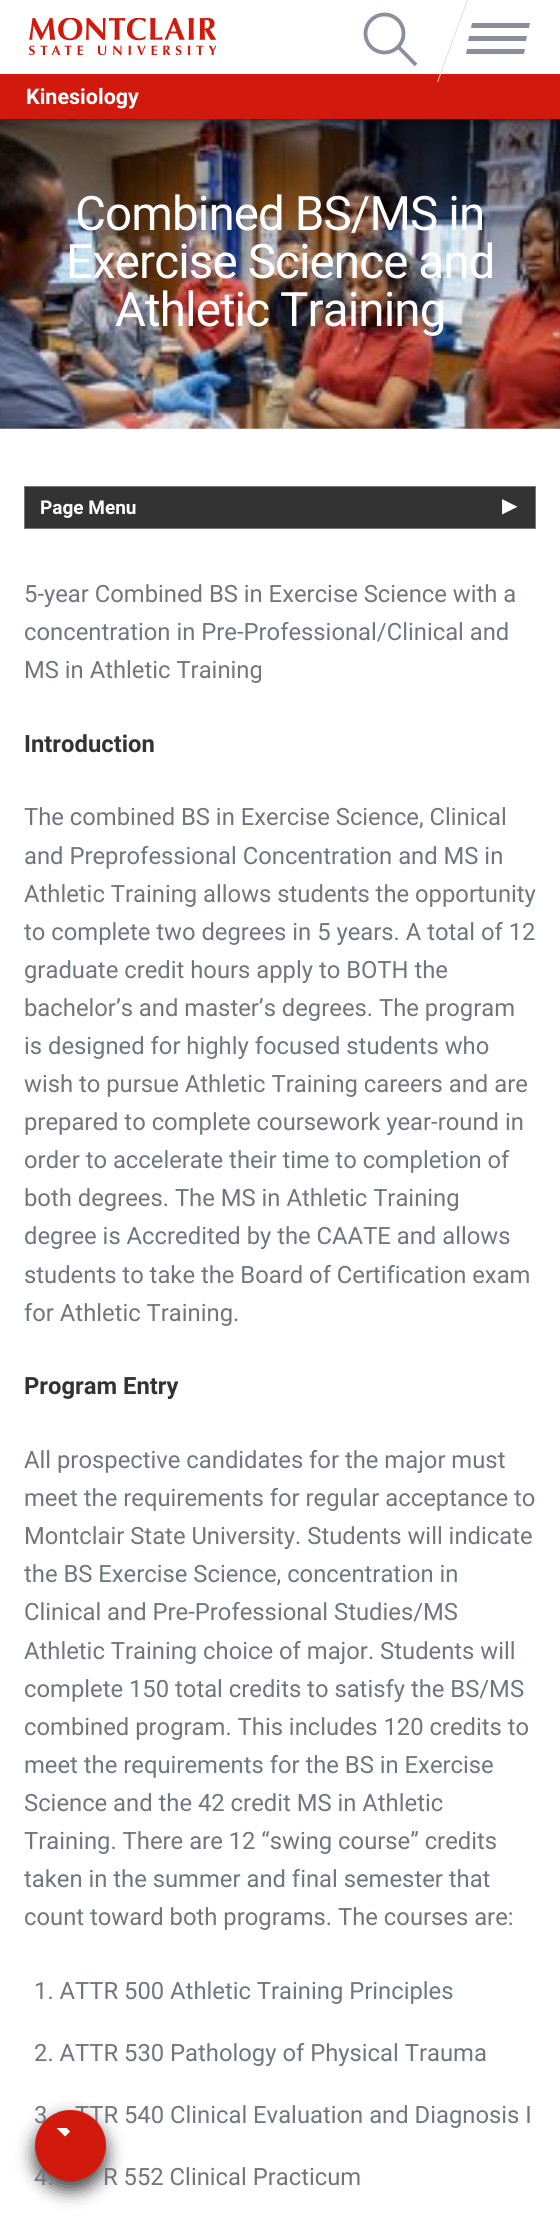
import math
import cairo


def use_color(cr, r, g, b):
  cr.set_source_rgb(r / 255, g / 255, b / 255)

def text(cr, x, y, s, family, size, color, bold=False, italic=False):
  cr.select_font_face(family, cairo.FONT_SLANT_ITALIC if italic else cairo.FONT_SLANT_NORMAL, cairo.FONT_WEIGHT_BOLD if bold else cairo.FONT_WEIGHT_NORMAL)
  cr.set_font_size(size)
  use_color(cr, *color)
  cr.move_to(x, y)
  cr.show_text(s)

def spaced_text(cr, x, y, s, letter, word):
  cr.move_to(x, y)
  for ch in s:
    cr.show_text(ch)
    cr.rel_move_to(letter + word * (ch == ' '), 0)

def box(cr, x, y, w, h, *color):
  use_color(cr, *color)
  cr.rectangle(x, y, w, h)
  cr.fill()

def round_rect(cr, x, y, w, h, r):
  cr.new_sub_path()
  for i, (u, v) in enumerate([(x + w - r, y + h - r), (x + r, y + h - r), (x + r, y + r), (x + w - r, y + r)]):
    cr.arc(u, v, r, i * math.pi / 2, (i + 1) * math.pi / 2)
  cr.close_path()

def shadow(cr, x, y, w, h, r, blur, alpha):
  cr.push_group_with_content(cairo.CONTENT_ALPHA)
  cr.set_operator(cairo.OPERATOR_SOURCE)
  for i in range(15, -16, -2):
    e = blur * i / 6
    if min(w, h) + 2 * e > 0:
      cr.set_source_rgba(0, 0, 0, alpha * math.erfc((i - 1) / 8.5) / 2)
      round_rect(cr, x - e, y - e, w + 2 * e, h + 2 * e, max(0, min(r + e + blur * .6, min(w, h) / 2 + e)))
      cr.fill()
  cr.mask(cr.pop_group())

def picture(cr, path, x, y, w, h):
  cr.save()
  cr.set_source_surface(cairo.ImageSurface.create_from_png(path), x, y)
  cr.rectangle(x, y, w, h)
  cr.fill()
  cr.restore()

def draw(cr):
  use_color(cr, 255, 255, 255)
  cr.paint()
  picture(cr, "img_02.png", 0, 119, 560, 310)
  use_color(cr, 0, 0, 0)
  shadow(cr, 0, 0, 560, 119, 0, 4.5, 0.75)
  box(cr, 0, 0, 560, 74, 255, 255, 255)
  cr.arc(384.5, 33.5, 19, 0, 2 * math.pi)
  use_color(cr, 139, 143, 156)
  cr.set_line_width(3.8)
  cr.stroke()
  cr.new_path()
  cr.move_to(416, 65)
  cr.line_to(397.5, 46)
  cr.stroke()
  box(cr, 0, 74, 560, 45, 209, 25, 13)
  use_color(cr, 221, 221, 226)
  cr.new_path()
  cr.move_to(467, 0)
  cr.line_to(468, 0)
  cr.line_to(438, 82)
  cr.line_to(437, 82)
  cr.close_path()
  cr.fill()
  use_color(cr, 139, 143, 156)
  cr.new_path()
  cr.move_to(524, 54)
  cr.line_to(466, 54)
  cr.line_to(467, 49)
  cr.line_to(525, 49)
  cr.move_to(526, 41)
  cr.line_to(468, 41)
  cr.line_to(469, 36)
  cr.line_to(527, 36)
  cr.move_to(529, 28)
  cr.line_to(471, 28)
  cr.line_to(472, 23)
  cr.line_to(530, 23)
  cr.fill()
  picture(cr, "img_01.png", 29, 18, 187, 37)
  use_color(cr, 51, 51, 51)
  cr.rectangle(24.5, 486.5, 511, 42)
  cr.fill_preserve()
  use_color(cr, 119, 119, 119)
  cr.set_line_width(1)
  cr.stroke()
  use_color(cr, 0, 0, 0)
  shadow(cr, 35, 2119, 71, 71, 35.5, 9, 0.75)
  text(cr, 26, 104, "Kinesiology", "Roboto", 21.5, (255, 255, 255), bold=True)
  cr.select_font_face("Roboto")
  cr.set_font_size(47.5)
  spaced_text(cr, 75, 230, "Combined BS/MS in", -0.9, 0)
  spaced_text(cr, 66, 278, "Exercise Science and", -0.9, 0)
  spaced_text(cr, 115, 326, "Athletic Training", -0.9, 0)
  text(cr, 40, 514, "Page Menu", "Roboto", 19, (255, 255, 255), bold=True)
  text(cr, 502, 512, "▶", "DejaVu Sans", 19, (255, 255, 255), bold=True)
  text(cr, 24, 602, "5-year Combined BS in Exercise Science with a", "Roboto", 23.8, (114, 117, 128))
  text(cr, 24, 640, "concentration in Pre-Professional/Clinical and", "Roboto", 23.8, (114, 117, 128))
  text(cr, 24, 678, "MS in Athletic Training", "Roboto", 23.8, (114, 117, 128))
  text(cr, 24, 752, "Introduction", "Roboto", 23.8, (51, 51, 51), bold=True)
  text(cr, 24, 825, "The combined BS in Exercise Science, Clinical", "Roboto", 23.8, (114, 117, 128))
  text(cr, 24, 864, "and Preprofessional Concentration and MS in", "Roboto", 23.8, (114, 117, 128))
  text(cr, 24, 902, "Athletic Training allows students the opportunity", "Roboto", 23.8, (114, 117, 128))
  text(cr, 24, 940, "to complete two degrees in 5 years. A total of 12", "Roboto", 23.8, (114, 117, 128))
  text(cr, 24, 978, "graduate credit hours apply to BOTH the", "Roboto", 23.8, (114, 117, 128))
  text(cr, 24, 1016, "bachelor’s and master’s degrees. The program", "Roboto", 23.8, (114, 117, 128))
  text(cr, 24, 1054, "is designed for highly focused students who", "Roboto", 23.8, (114, 117, 128))
  text(cr, 24, 1092, "wish to pursue Athletic Training careers and are", "Roboto", 23.8, (114, 117, 128))
  text(cr, 24, 1130, "prepared to complete coursework year-round in", "Roboto", 23.8, (114, 117, 128))
  text(cr, 24, 1168, "order to accelerate their time to completion of", "Roboto", 23.8, (114, 117, 128))
  text(cr, 24, 1206, "both degrees. The MS in Athletic Training", "Roboto", 23.8, (114, 117, 128))
  text(cr, 24, 1244, "degree is Accredited by the CAATE and allows", "Roboto", 23.8, (114, 117, 128))
  text(cr, 24, 1283, "students to take the Board of Certification exam", "Roboto", 23.8, (114, 117, 128))
  text(cr, 24, 1321, "for Athletic Training.", "Roboto", 23.8, (114, 117, 128))
  text(cr, 24, 1394, "Program Entry", "Roboto", 23.8, (51, 51, 51), bold=True)
  text(cr, 24, 1468, "All prospective candidates for the major must", "Roboto", 23.8, (114, 117, 128))
  text(cr, 24, 1506, "meet the requirements for regular acceptance to", "Roboto", 23.8, (114, 117, 128))
  text(cr, 24, 1544, "Montclair State University. Students will indicate", "Roboto", 23.8, (114, 117, 128))
  text(cr, 24, 1582, "the BS Exercise Science, concentration in", "Roboto", 23.8, (114, 117, 128))
  text(cr, 24, 1620, "Clinical and Pre-Professional Studies/MS", "Roboto", 23.8, (114, 117, 128))
  text(cr, 24, 1659, "Athletic Training choice of major. Students will", "Roboto", 23.8, (114, 117, 128))
  text(cr, 24, 1697, "complete 150 total credits to satisfy the BS/MS", "Roboto", 23.8, (114, 117, 128))
  text(cr, 24, 1735, "combined program. This includes 120 credits to", "Roboto", 23.8, (114, 117, 128))
  text(cr, 24, 1773, "meet the requirements for the BS in Exercise", "Roboto", 23.8, (114, 117, 128))
  text(cr, 24, 1811, "Science and the 42 credit MS in Athletic", "Roboto", 23.8, (114, 117, 128))
  text(cr, 24, 1849, "Training. There are 12 “swing course” credits", "Roboto", 23.8, (114, 117, 128))
  text(cr, 24, 1887, "taken in the summer and final semester that", "Roboto", 23.8, (114, 117, 128))
  text(cr, 24, 1925, "count toward both programs. The courses are:", "Roboto", 23.8, (114, 117, 128))
  text(cr, 34, 1999, "1. ATTR 500 Athletic Training Principles", "Roboto", 23.8, (114, 117, 128))
  text(cr, 34, 2061, "2. ATTR 530 Pathology of Physical Trauma", "Roboto", 23.8, (114, 117, 128))
  text(cr, 34, 2123, "3", "Roboto", 23.8, (114, 117, 128))
  text(cr, 75, 2123, "TTR 540 Clinical Evaluation and Diagnosis I", "Roboto", 23.8, (114, 117, 128))
  text(cr, 34, 2185, "4.", "Roboto", 23.8, (114, 117, 128))
  text(cr, 103, 2185, "R 552 Clinical Practicum", "Roboto", 23.8, (114, 117, 128))
  use_color(cr, 209, 25, 13)
  cr.new_path()
  cr.arc(70.5, 2145.5, 35.5, 0, 2 * math.pi)
  cr.fill()
  cr.save()
  cr.rectangle(54, 2128, 35, 35)
  cr.clip()
  use_color(cr, 255, 255, 255)
  cr.new_path()
  cr.move_to(36, 2131.5)
  cr.line_to(53, 2114)
  cr.line_to(70, 2131.5)
  cr.line_to(65, 2136.5)
  cr.line_to(53, 2124.5)
  cr.line_to(41.5, 2136.5)
  cr.close_path()
  cr.fill()
  cr.restore()


surface = cairo.ImageSurface(cairo.FORMAT_RGB24, 560, 2235)
cr = cairo.Context(surface)
options = cairo.FontOptions()
options.set_hint_metrics(cairo.HINT_METRICS_OFF)
options.set_hint_style(cairo.HINT_STYLE_NONE)
cr.set_font_options(options)
cr.set_miter_limit(4)
draw(cr)
surface.write_to_png("out.png")
